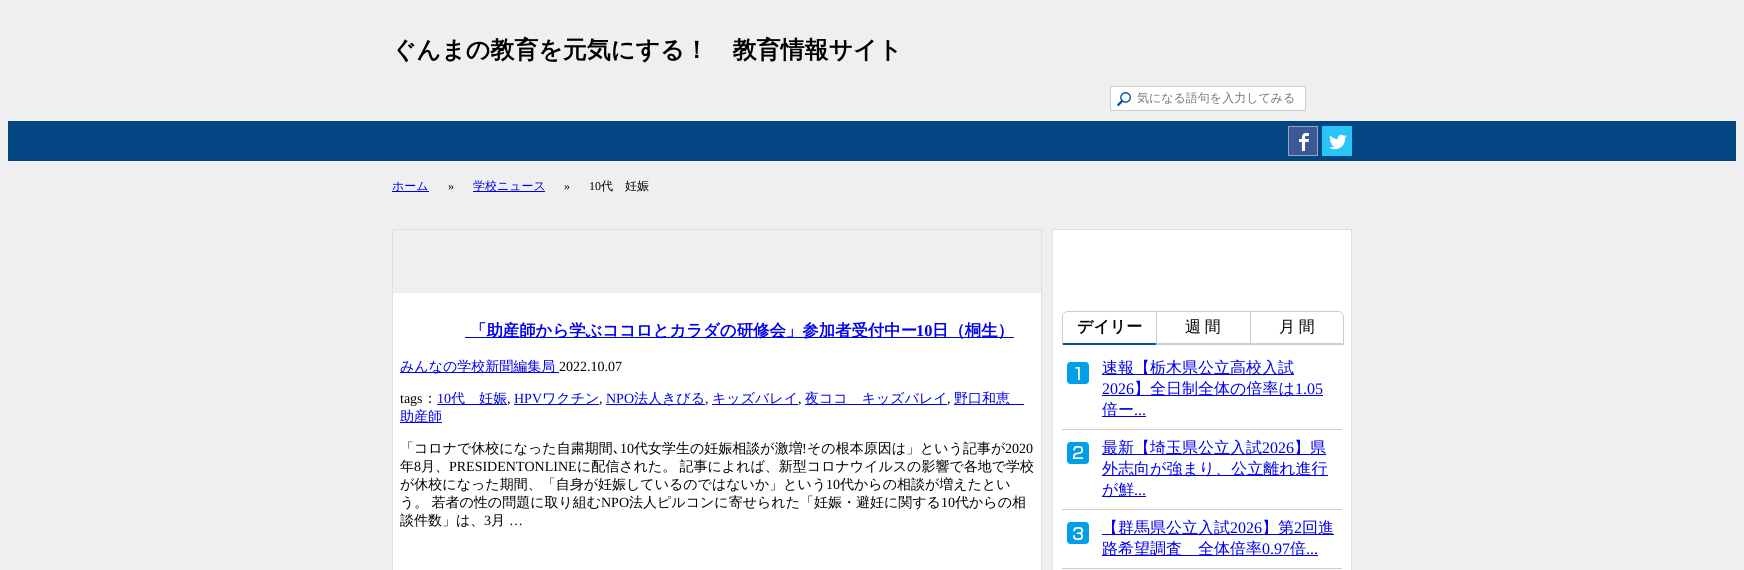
import math
import cairo


def use_color(cr, r, g, b):
  cr.set_source_rgb(r / 255, g / 255, b / 255)

def text(cr, x, y, s, family, size, color, bold=False, italic=False):
  cr.select_font_face(family, cairo.FONT_SLANT_ITALIC if italic else cairo.FONT_SLANT_NORMAL, cairo.FONT_WEIGHT_BOLD if bold else cairo.FONT_WEIGHT_NORMAL)
  cr.set_font_size(size)
  use_color(cr, *color)
  cr.move_to(x, y)
  cr.show_text(s)

def spaced_text(cr, x, y, s, letter, word):
  cr.move_to(x, y)
  for ch in s:
    cr.show_text(ch)
    cr.rel_move_to(letter + word * (ch == ' '), 0)

def box(cr, x, y, w, h, *color):
  use_color(cr, *color)
  cr.rectangle(x, y, w, h)
  cr.fill()

def picture(cr, path, x, y, w, h):
  cr.save()
  cr.set_source_surface(cairo.ImageSurface.create_from_png(path), x, y)
  cr.rectangle(x, y, w, h)
  cr.fill()
  cr.restore()

def draw(cr):
  use_color(cr, 239, 239, 239)
  cr.paint()
  box(cr, 1111, 87, 194, 23, 255, 255, 255)
  picture(cr, "img_01.png", 1117, 92, 14, 14)
  cr.rectangle(1110.5, 86.5, 195, 24)
  use_color(cr, 204, 204, 204)
  cr.set_line_width(1)
  cr.stroke()
  box(cr, 8, 121, 1728, 40, 4, 69, 131)
  picture(cr, "img_02.png", 1288, 126, 30, 30)
  picture(cr, "img_03.png", 1322, 126, 30, 30)
  box(cr, 392, 191, 37, 1, 0, 0, 238)
  box(cr, 473, 191, 72, 1, 0, 0, 238)
  cr.rectangle(392.5, 229.5, 649, 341)
  use_color(cr, 223, 223, 223)
  cr.stroke()
  box(cr, 393, 293, 648, 277, 255, 255, 255)
  box(cr, 465, 337, 549, 1, 0, 0, 238)
  box(cr, 400, 372, 159, 1, 0, 0, 238)
  box(cr, 437, 404, 70, 1, 0, 0, 238)
  box(cr, 514, 404, 85, 1, 0, 0, 238)
  box(cr, 606, 404, 99, 1, 0, 0, 238)
  box(cr, 712, 404, 86, 1, 0, 0, 238)
  box(cr, 805, 404, 142, 1, 0, 0, 238)
  box(cr, 954, 404, 56, 1, 0, 0, 238)
  box(cr, 1010, 404, 14, 1, 0, 0, 238)
  box(cr, 400, 422, 42, 1, 0, 0, 238)
  use_color(cr, 255, 255, 255)
  cr.rectangle(1052.5, 229.5, 299, 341)
  cr.fill_preserve()
  use_color(cr, 223, 223, 223)
  cr.stroke()
  use_color(cr, 204, 204, 204)
  cr.set_fill_rule(cairo.FILL_RULE_EVEN_ODD)
  cr.new_path()
  cr.move_to(1068, 311)
  cr.line_to(1338, 311)
  cr.curve_to(1341, 311, 1344, 314, 1344, 317)
  cr.line_to(1344, 345)
  cr.line_to(1062, 345)
  cr.line_to(1062, 317)
  cr.curve_to(1062, 314, 1065, 311, 1068, 311)
  cr.close_path()
  cr.move_to(1068, 312)
  cr.line_to(1338, 312)
  cr.curve_to(1341, 312, 1343, 314, 1343, 317)
  cr.line_to(1343, 345)
  cr.line_to(1063, 345)
  cr.line_to(1063, 317)
  cr.curve_to(1063, 314, 1065, 312, 1068, 312)
  cr.close_path()
  cr.fill()
  box(cr, 1063, 343, 93, 2, 0, 82, 156)
  box(cr, 1156, 343, 187, 2, 204, 204, 204)
  box(cr, 1156, 312, 1, 33, 204, 204, 204)
  box(cr, 1250, 312, 1, 33, 204, 204, 204)
  picture(cr, "img_04.png", 1067, 362, 22, 22)
  box(cr, 1102, 374, 192, 1, 0, 0, 238)
  box(cr, 1102, 395, 221, 1, 0, 0, 238)
  box(cr, 1102, 416, 44, 1, 0, 0, 238)
  box(cr, 1062, 429, 280, 1, 204, 204, 204)
  picture(cr, "img_05.png", 1067, 442, 22, 22)
  box(cr, 1102, 454, 224, 1, 0, 0, 238)
  box(cr, 1102, 475, 226, 1, 0, 0, 238)
  box(cr, 1102, 496, 44, 1, 0, 0, 238)
  box(cr, 1062, 509, 280, 1, 204, 204, 204)
  picture(cr, "img_06.png", 1067, 522, 22, 22)
  box(cr, 1102, 534, 232, 1, 0, 0, 238)
  box(cr, 1102, 555, 216, 1, 0, 0, 238)
  box(cr, 1062, 568, 280, 1, 204, 204, 204)
  text(cr, 392, 58, "ぐんまの教育を元気にする！　教育情報サイト", "WenQuanYi Zen Hei", 24, (0, 0, 0), bold=True)
  text(cr, 1137, 102, "気になる語句を入力してみる", "WenQuanYi Zen Hei Medium", 12, (117, 117, 117))
  text(cr, 392, 190, "ホーム", "WenQuanYi Zen Hei Medium", 12, (0, 0, 238))
  text(cr, 448, 190, "»", "Liberation Serif", 12, (0, 0, 0))
  text(cr, 473, 190, "学校ニュース", "WenQuanYi Zen Hei Medium", 12, (0, 0, 238))
  text(cr, 564, 190, "»", "Liberation Serif", 12, (0, 0, 0))
  text(cr, 589, 190, "10", "Liberation Serif", 12, (0, 0, 0))
  text(cr, 601, 190, "代　妊娠", "WenQuanYi Zen Hei Medium", 12, (0, 0, 0))
  text(cr, 470, 336, "「助産師から学ぶココロとカラダの研修会」参加者受付中ー", "WenQuanYi Zen Hei", 16.4, (0, 0, 238), bold=True)
  text(cr, 916, 336, "10", "Liberation Serif", 16.4, (0, 0, 238), bold=True)
  text(cr, 932, 336, "日（桐生）", "WenQuanYi Zen Hei", 16.4, (0, 0, 238), bold=True)
  text(cr, 400, 371, "みんなの学校新聞編集局", "WenQuanYi Zen Hei Medium", 14, (0, 0, 238))
  text(cr, 559, 371, "2022.10.07", "Liberation Serif", 14, (0, 0, 0))
  text(cr, 400, 403, "tags", "Liberation Serif", 14, (0, 0, 0))
  text(cr, 423, 403, "：", "WenQuanYi Zen Hei Medium", 14, (0, 0, 0))
  text(cr, 437, 403, "10", "Liberation Serif", 14, (0, 0, 238))
  text(cr, 451, 403, "代　妊娠", "WenQuanYi Zen Hei Medium", 14, (0, 0, 238))
  text(cr, 514, 403, "HPV", "Liberation Serif", 14, (0, 0, 238))
  text(cr, 542, 403, "ワクチン", "WenQuanYi Zen Hei Medium", 14, (0, 0, 238))
  text(cr, 606, 403, "NPO", "Liberation Serif", 14, (0, 0, 238))
  text(cr, 634, 403, "法人きびる", "WenQuanYi Zen Hei Medium", 14, (0, 0, 238))
  text(cr, 712, 403, "キッズバレイ", "WenQuanYi Zen Hei Medium", 14, (0, 0, 238))
  text(cr, 805, 403, "夜ココ　キッズバレイ", "WenQuanYi Zen Hei Medium", 14, (0, 0, 238))
  text(cr, 954, 403, "野口和恵", "WenQuanYi Zen Hei Medium", 14, (0, 0, 238))
  text(cr, 507, 403, ",", "Liberation Serif", 14, (0, 0, 0))
  text(cr, 599, 403, ",", "Liberation Serif", 14, (0, 0, 0))
  text(cr, 705, 403, ",", "Liberation Serif", 14, (0, 0, 0))
  text(cr, 798, 403, ",", "Liberation Serif", 14, (0, 0, 0))
  text(cr, 947, 403, ",", "Liberation Serif", 14, (0, 0, 0))
  text(cr, 400, 421, "助産師", "WenQuanYi Zen Hei Medium", 14, (0, 0, 238))
  text(cr, 400, 453, "「コロナで休校になった自粛期間", "WenQuanYi Zen Hei Medium", 14, (0, 0, 0))
  text(cr, 613, 453, "､", "IPAPGothic", 14, (0, 0, 0))
  text(cr, 620, 453, "10", "Liberation Serif", 14, (0, 0, 0))
  text(cr, 634, 453, "代女学生の妊娠相談が激増", "WenQuanYi Zen Hei Medium", 14, (0, 0, 0))
  text(cr, 802, 453, "!", "Liberation Serif", 14, (0, 0, 0))
  text(cr, 807, 453, "その根本原因は」という記事が", "WenQuanYi Zen Hei Medium", 14, (0, 0, 0))
  text(cr, 1005, 453, "2020", "Liberation Serif", 14, (0, 0, 0))
  text(cr, 400, 471, "年", "WenQuanYi Zen Hei Medium", 14, (0, 0, 0))
  text(cr, 414, 471, "8", "Liberation Serif", 14, (0, 0, 0))
  text(cr, 421, 471, "月、", "WenQuanYi Zen Hei Medium", 14, (0, 0, 0))
  text(cr, 449, 471, "PRESIDENTONLINE", "Liberation Serif", 14, (0, 0, 0))
  cr.select_font_face("WenQuanYi Zen Hei Medium")
  spaced_text(cr, 577, 471, "に配信された。 記事によれば、新型コロナウイルスの影響で各地で学校", 0, -1)
  text(cr, 400, 489, "が休校になった期間、「自身が妊娠しているのではないか」という", "WenQuanYi Zen Hei Medium", 14, (0, 0, 0))
  text(cr, 826, 489, "10", "Liberation Serif", 14, (0, 0, 0))
  text(cr, 840, 489, "代からの相談が増えたとい", "WenQuanYi Zen Hei Medium", 14, (0, 0, 0))
  spaced_text(cr, 400, 507, "う。 若者の性の問題に取り組む", 0, -1)
  text(cr, 601, 507, "NPO", "Liberation Serif", 14, (0, 0, 0))
  text(cr, 629, 507, "法人ピルコンに寄せられた「妊娠・避妊に関する", "WenQuanYi Zen Hei Medium", 14, (0, 0, 0))
  text(cr, 941, 507, "10", "Liberation Serif", 14, (0, 0, 0))
  text(cr, 955, 507, "代からの相", "WenQuanYi Zen Hei Medium", 14, (0, 0, 0))
  text(cr, 400, 525, "談件数」は、", "WenQuanYi Zen Hei Medium", 14, (0, 0, 0))
  text(cr, 484, 525, "3", "Liberation Serif", 14, (0, 0, 0))
  text(cr, 491, 525, "月", "WenQuanYi Zen Hei Medium", 14, (0, 0, 0))
  text(cr, 509, 525, "…", "Liberation Serif", 14, (0, 0, 0))
  text(cr, 1077, 332, "デイリー", "WenQuanYi Zen Hei", 16, (0, 0, 0), bold=True)
  cr.select_font_face("WenQuanYi Zen Hei Medium")
  spaced_text(cr, 1185, 332, "週 間", 0, -1)
  spaced_text(cr, 1279, 332, "月 間", 0, -1)
  text(cr, 1102, 373, "速報【栃木県公立高校入試", "WenQuanYi Zen Hei Medium", 16, (0, 0, 238))
  text(cr, 1102, 394, "2026", "Liberation Serif", 16, (0, 0, 238))
  text(cr, 1134, 394, "】全日制全体の倍率は", "WenQuanYi Zen Hei Medium", 16, (0, 0, 238))
  text(cr, 1295, 394, "1.05", "Liberation Serif", 16, (0, 0, 238))
  text(cr, 1102, 415, "倍ー", "WenQuanYi Zen Hei Medium", 16, (0, 0, 238))
  text(cr, 1134, 415, "...", "Liberation Serif", 16, (0, 0, 238))
  text(cr, 1102, 453, "最新【埼玉県公立入試", "WenQuanYi Zen Hei Medium", 16, (0, 0, 238))
  text(cr, 1262, 453, "2026", "Liberation Serif", 16, (0, 0, 238))
  text(cr, 1294, 453, "】県", "WenQuanYi Zen Hei Medium", 16, (0, 0, 238))
  text(cr, 1102, 474, "外志向が強まり、公立離れ進行", "WenQuanYi Zen Hei Medium", 16, (0, 0, 238))
  text(cr, 1102, 495, "が鮮", "WenQuanYi Zen Hei Medium", 16, (0, 0, 238))
  text(cr, 1134, 495, "...", "Liberation Serif", 16, (0, 0, 238))
  text(cr, 1102, 533, "【群馬県公立入試", "WenQuanYi Zen Hei Medium", 16, (0, 0, 238))
  text(cr, 1230, 533, "2026", "Liberation Serif", 16, (0, 0, 238))
  text(cr, 1262, 533, "】第", "WenQuanYi Zen Hei Medium", 16, (0, 0, 238))
  text(cr, 1294, 533, "2", "Liberation Serif", 16, (0, 0, 238))
  text(cr, 1302, 533, "回進", "WenQuanYi Zen Hei Medium", 16, (0, 0, 238))
  text(cr, 1102, 554, "路希望調査　全体倍率", "WenQuanYi Zen Hei Medium", 16, (0, 0, 238))
  text(cr, 1262, 554, "0.97", "Liberation Serif", 16, (0, 0, 238))
  text(cr, 1290, 554, "倍", "WenQuanYi Zen Hei Medium", 16, (0, 0, 238))
  text(cr, 1306, 554, "...", "Liberation Serif", 16, (0, 0, 238))


surface = cairo.ImageSurface(cairo.FORMAT_RGB24, 1744, 570)
cr = cairo.Context(surface)
options = cairo.FontOptions()
options.set_hint_metrics(cairo.HINT_METRICS_OFF)
options.set_hint_style(cairo.HINT_STYLE_NONE)
cr.set_font_options(options)
cr.set_miter_limit(4)
draw(cr)
surface.write_to_png("out.png")
